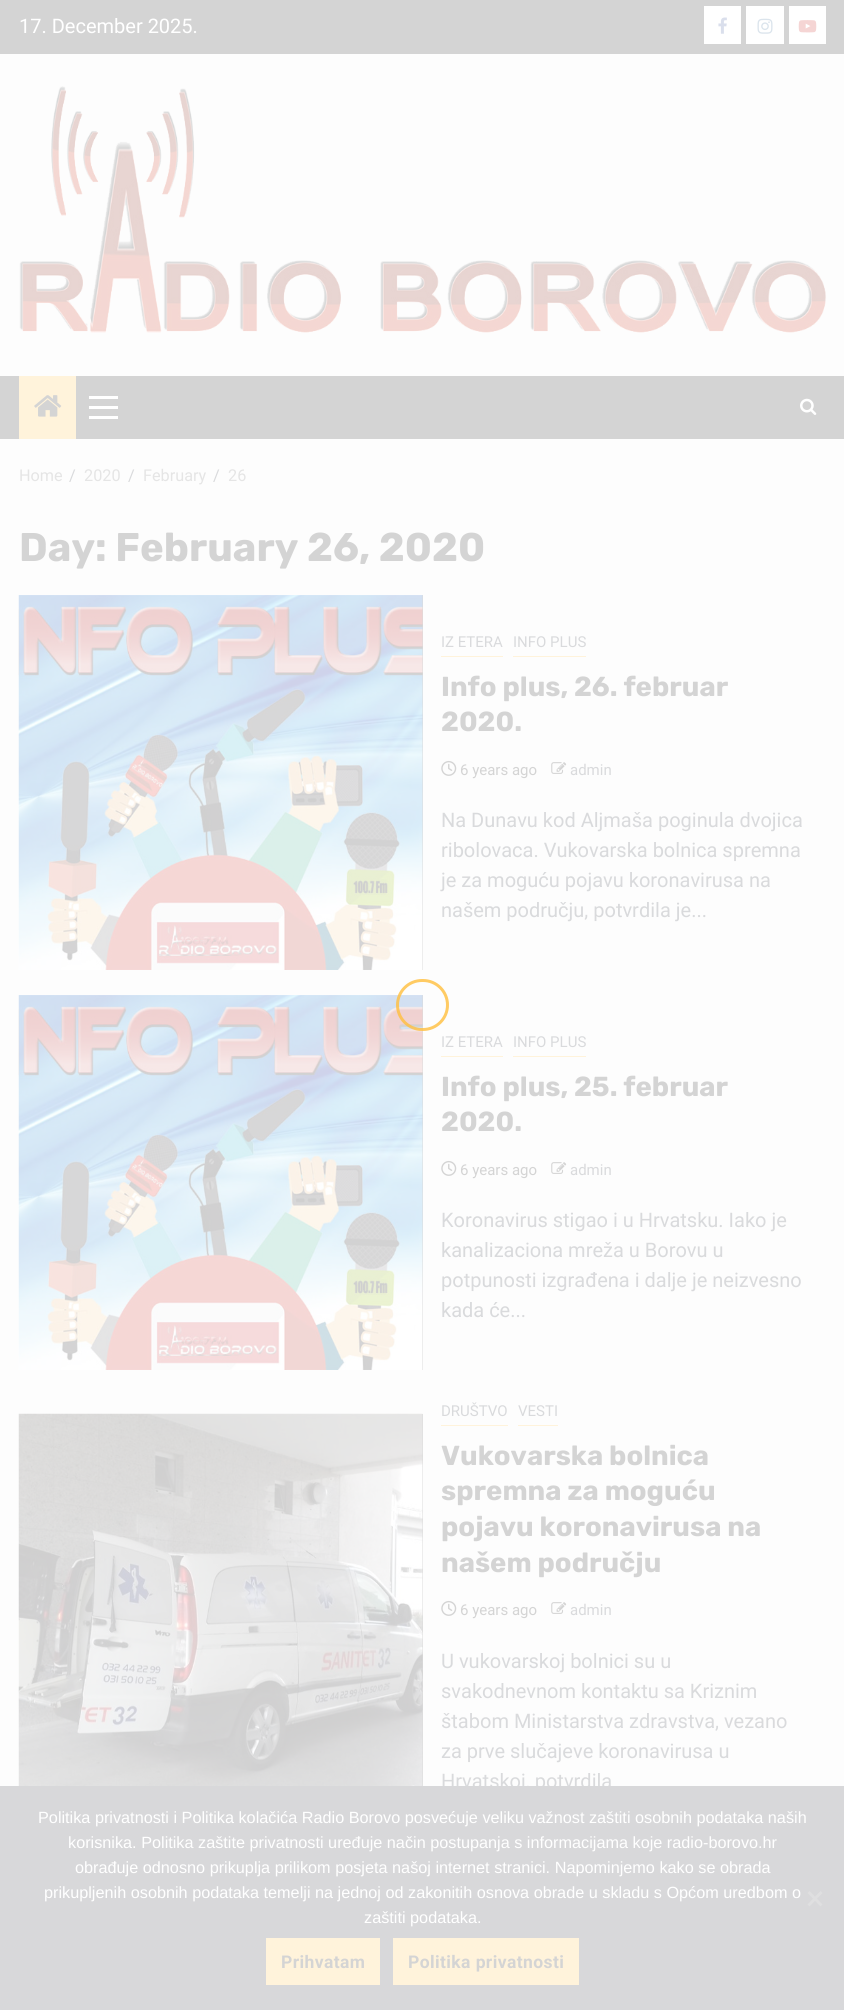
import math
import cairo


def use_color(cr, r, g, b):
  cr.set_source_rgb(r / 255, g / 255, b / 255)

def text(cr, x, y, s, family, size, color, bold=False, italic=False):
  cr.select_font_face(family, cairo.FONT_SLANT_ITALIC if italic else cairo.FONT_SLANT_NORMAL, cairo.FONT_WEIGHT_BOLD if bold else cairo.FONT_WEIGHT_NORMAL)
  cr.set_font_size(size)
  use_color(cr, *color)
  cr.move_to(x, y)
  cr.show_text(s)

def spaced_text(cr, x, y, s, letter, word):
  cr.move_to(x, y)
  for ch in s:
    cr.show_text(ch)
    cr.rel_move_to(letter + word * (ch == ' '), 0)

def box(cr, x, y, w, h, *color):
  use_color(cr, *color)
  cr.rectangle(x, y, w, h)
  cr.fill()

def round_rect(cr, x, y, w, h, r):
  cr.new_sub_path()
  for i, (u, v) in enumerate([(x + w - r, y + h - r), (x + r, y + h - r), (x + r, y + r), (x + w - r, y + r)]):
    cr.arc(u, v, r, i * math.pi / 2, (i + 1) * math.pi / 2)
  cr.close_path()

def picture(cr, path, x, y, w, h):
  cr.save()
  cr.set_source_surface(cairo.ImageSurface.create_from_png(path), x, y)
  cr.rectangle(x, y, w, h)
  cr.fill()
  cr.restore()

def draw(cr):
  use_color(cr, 253, 253, 253)
  cr.paint()
  box(cr, 0, 0, 844, 54, 212, 212, 212)
  box(cr, 704, 6, 37, 38, 255, 255, 255)
  picture(cr, "img_01.png", 718, 17, 9, 17)
  box(cr, 746, 6, 38, 38, 255, 255, 255)
  picture(cr, "img_02.png", 757, 18, 16, 16)
  box(cr, 789, 6, 37, 38, 255, 255, 255)
  picture(cr, "img_03.png", 798, 20, 19, 13)
  picture(cr, "img_04.png", 19, 86, 808, 247)
  box(cr, 0, 376, 844, 63, 212, 212, 212)
  box(cr, 19, 376, 57, 63, 255, 243, 219)
  picture(cr, "img_05.png", 34, 395, 28, 22)
  box(cr, 89, 406, 29, 3, 255, 255, 255)
  box(cr, 89, 396, 29, 3, 255, 255, 255)
  box(cr, 89, 416, 29, 3, 255, 255, 255)
  picture(cr, "img_06.png", 800, 398, 17, 17)
  box(cr, 422, 595, 1, 375, 219, 219, 219)
  picture(cr, "img_07.png", 18, 595, 405, 375)
  box(cr, 441, 656, 62, 1, 255, 243, 219)
  box(cr, 513, 656, 73, 1, 255, 243, 219)
  picture(cr, "img_08.png", 441, 760, 16, 16)
  picture(cr, "img_09.png", 551, 762, 16, 12)
  box(cr, 422, 995, 1, 375, 219, 219, 219)
  picture(cr, "img_07.png", 18, 995, 405, 375)
  box(cr, 441, 1056, 62, 1, 255, 243, 219)
  box(cr, 513, 1056, 73, 1, 255, 243, 219)
  picture(cr, "img_08.png", 441, 1160, 16, 16)
  picture(cr, "img_09.png", 551, 1162, 16, 12)
  box(cr, 422, 1414, 1, 372, 219, 219, 219)
  picture(cr, "img_10.png", 18, 1413, 405, 373)
  box(cr, 441, 1425, 67, 1, 255, 243, 219)
  box(cr, 518, 1425, 40, 1, 255, 243, 219)
  picture(cr, "img_08.png", 441, 1600, 16, 16)
  picture(cr, "img_09.png", 551, 1602, 16, 12)
  round_rect(cr, 397.5, 980.5, 50, 49, 24.5)
  cr.set_source_rgba(1, 0.749, 0.247, 0.81)
  cr.set_line_width(3)
  cr.stroke()
  text(cr, 19, 33, "17. December 2025.", "Roboto", 20, (255, 255, 255))
  text(cr, 19, 481, "Home", "Roboto", 16.25, (229, 229, 229))
  text(cr, 69, 481, "/", "Roboto", 16.25, (217, 218, 220))
  text(cr, 84, 481, "2020", "Roboto", 16.25, (229, 229, 229))
  text(cr, 128, 481, "/", "Roboto", 16.25, (217, 218, 220))
  text(cr, 143, 481, "February", "Roboto", 16.25, (229, 229, 229))
  text(cr, 213, 481, "/", "Roboto", 16.25, (217, 218, 220))
  text(cr, 228, 481, "26", "Roboto", 16.25, (229, 229, 229))
  text(cr, 19, 561, "Day: February 26, 2020", "Rubik", 40, (212, 212, 212), bold=True)
  text(cr, 441, 647, "IZ ETERA", "Roboto", 15, (217, 218, 220))
  text(cr, 513, 647, "INFO PLUS", "Roboto", 15, (217, 218, 220))
  text(cr, 441, 696, "Info plus, 26. februar", "Rubik", 27.5, (212, 212, 212), bold=True)
  text(cr, 441, 731, "2020.", "Rubik", 27.5, (212, 212, 212), bold=True)
  text(cr, 460, 775, "6 years ago", "Roboto", 15, (212, 212, 212))
  text(cr, 570, 775, "admin", "Roboto", 15, (217, 218, 220))
  text(cr, 441, 827, "Na Dunavu kod Aljmaša poginula dvojica", "Roboto", 20, (217, 218, 220))
  text(cr, 441, 857, "ribolovaca. Vukovarska bolnica spremna", "Roboto", 20, (217, 218, 220))
  text(cr, 441, 887, "je za moguću pojavu koronavirusa na", "Roboto", 20, (217, 218, 220))
  text(cr, 441, 917, "našem području, potvrdila je...", "Roboto", 20, (217, 218, 220))
  text(cr, 441, 1047, "IZ ETERA", "Roboto", 15, (217, 218, 220))
  text(cr, 513, 1047, "INFO PLUS", "Roboto", 15, (217, 218, 220))
  text(cr, 441, 1096, "Info plus, 25. februar", "Rubik", 27.5, (212, 212, 212), bold=True)
  text(cr, 441, 1131, "2020.", "Rubik", 27.5, (212, 212, 212), bold=True)
  text(cr, 460, 1175, "6 years ago", "Roboto", 15, (212, 212, 212))
  text(cr, 570, 1175, "admin", "Roboto", 15, (217, 218, 220))
  text(cr, 441, 1227, "Koronavirus stigao i u Hrvatsku. Iako je", "Roboto", 20, (217, 218, 220))
  text(cr, 441, 1257, "kanalizaciona mreža u Borovu u", "Roboto", 20, (217, 218, 220))
  text(cr, 441, 1287, "potpunosti izgrađena i dalje je neizvesno", "Roboto", 20, (217, 218, 220))
  text(cr, 441, 1317, "kada će...", "Roboto", 20, (217, 218, 220))
  text(cr, 441, 1416, "DRUŠTVO", "Roboto", 15, (217, 218, 220))
  text(cr, 518, 1416, "VESTI", "Roboto", 15, (217, 218, 220))
  text(cr, 441, 1465, "Vukovarska bolnica", "Rubik", 27.5, (212, 212, 212), bold=True)
  text(cr, 441, 1500, "spremna za moguću", "Rubik", 27.5, (212, 212, 212), bold=True)
  text(cr, 441, 1536, "pojavu koronavirusa na", "Rubik", 27.5, (212, 212, 212), bold=True)
  text(cr, 441, 1572, "našem području", "Rubik", 27.5, (212, 212, 212), bold=True)
  text(cr, 460, 1615, "6 years ago", "Roboto", 15, (212, 212, 212))
  text(cr, 570, 1615, "admin", "Roboto", 15, (217, 218, 220))
  text(cr, 441, 1668, "U vukovarskoj bolnici su u", "Roboto", 20, (217, 218, 220))
  text(cr, 441, 1698, "svakodnevnom kontaktu sa Kriznim", "Roboto", 20, (217, 218, 220))
  text(cr, 441, 1728, "štabom Ministarstva zdravstva, vezano", "Roboto", 20, (217, 218, 220))
  text(cr, 441, 1758, "za prve slučajeve koronavirusa u", "Roboto", 20, (217, 218, 220))
  text(cr, 441, 1788, "Hrvatskoj, potvrdila", "Roboto", 20, (217, 218, 220))
  box(cr, 0, 1786, 844, 224, 216, 216, 218)
  text(cr, 38, 1823, "Politika privatnosti i Politika kolačića Radio Borovo posvećuje veliku važnost zaštiti osobnih podataka naših", "Liberation Sans", 16.25, (255, 255, 255))
  text(cr, 68, 1848, "korisnika. Politika zaštite privatnosti uređuje način postupanja s informacijama koje radio-borovo.hr", "Liberation Sans", 16.25, (255, 255, 255))
  text(cr, 75, 1873, "obrađuje odnosno prikuplja prilikom posjeta našoj internet stranici. Napominjemo kako se obrada", "Liberation Sans", 16.25, (255, 255, 255))
  text(cr, 44, 1898, "prikupljenih osobnih podataka temelji na jednoj od zakonitih osnova obrade u skladu s Općom uredbom o", "Liberation Sans", 16.25, (255, 255, 255))
  text(cr, 364, 1923, "zaštiti podataka.", "Liberation Sans", 16.25, (255, 255, 255))
  use_color(cr, 223, 223, 224)
  cr.new_path()
  cr.move_to(820.5, 1891)
  cr.line_to(822.5, 1893)
  cr.line_to(809.5, 1906.5)
  cr.line_to(807.5, 1904.5)
  cr.close_path()
  cr.fill()
  cr.new_path()
  cr.move_to(807.5, 1893)
  cr.line_to(809.5, 1891)
  cr.line_to(822.5, 1904.5)
  cr.line_to(820.5, 1906.5)
  cr.close_path()
  cr.fill()
  box(cr, 266, 1938, 114, 47, 255, 243, 219)
  cr.select_font_face("Roboto", cairo.FONT_SLANT_NORMAL, cairo.FONT_WEIGHT_BOLD)
  cr.set_font_size(17.5)
  use_color(cr, 212, 212, 212)
  spaced_text(cr, 281, 1968, "Prihvatam", 0.4, 0)
  box(cr, 393, 1938, 186, 47, 255, 243, 219)
  use_color(cr, 212, 212, 212)
  spaced_text(cr, 408, 1968, "Politika privatnosti", 0.4, 0)


surface = cairo.ImageSurface(cairo.FORMAT_RGB24, 844, 2010)
cr = cairo.Context(surface)
options = cairo.FontOptions()
options.set_hint_metrics(cairo.HINT_METRICS_OFF)
options.set_hint_style(cairo.HINT_STYLE_NONE)
cr.set_font_options(options)
cr.set_miter_limit(4)
draw(cr)
surface.write_to_png("out.png")
